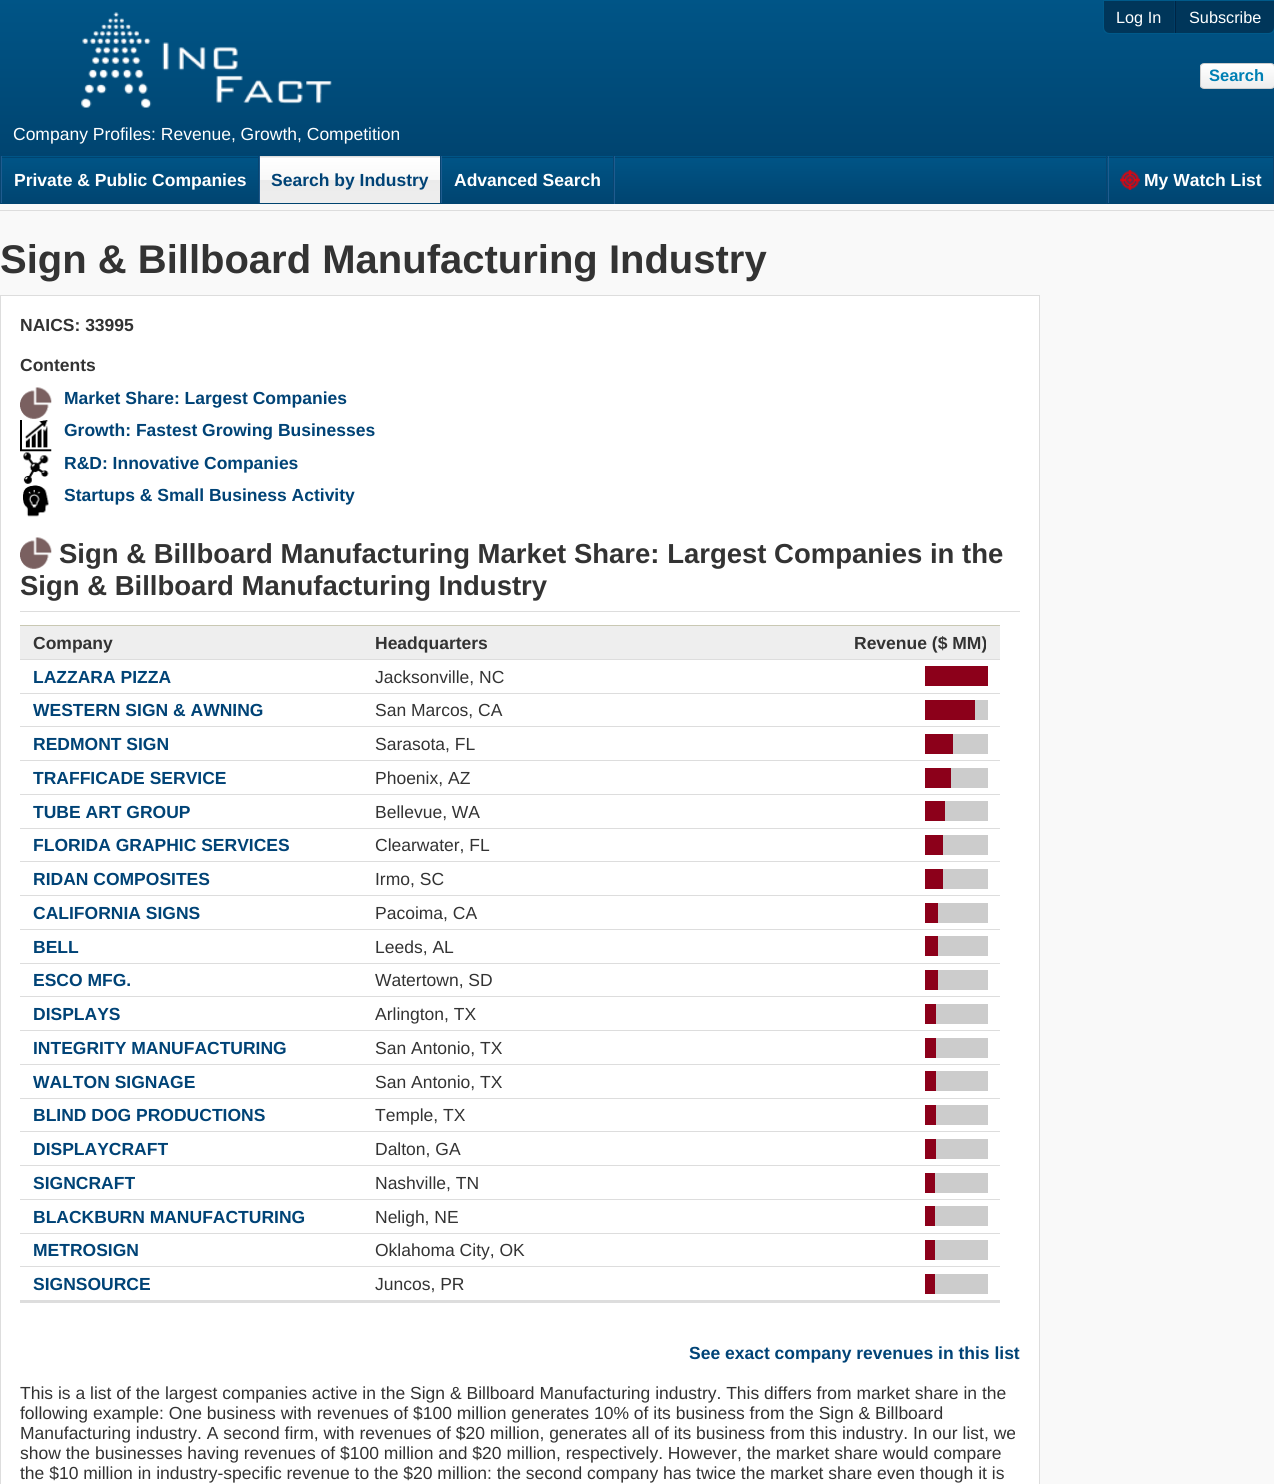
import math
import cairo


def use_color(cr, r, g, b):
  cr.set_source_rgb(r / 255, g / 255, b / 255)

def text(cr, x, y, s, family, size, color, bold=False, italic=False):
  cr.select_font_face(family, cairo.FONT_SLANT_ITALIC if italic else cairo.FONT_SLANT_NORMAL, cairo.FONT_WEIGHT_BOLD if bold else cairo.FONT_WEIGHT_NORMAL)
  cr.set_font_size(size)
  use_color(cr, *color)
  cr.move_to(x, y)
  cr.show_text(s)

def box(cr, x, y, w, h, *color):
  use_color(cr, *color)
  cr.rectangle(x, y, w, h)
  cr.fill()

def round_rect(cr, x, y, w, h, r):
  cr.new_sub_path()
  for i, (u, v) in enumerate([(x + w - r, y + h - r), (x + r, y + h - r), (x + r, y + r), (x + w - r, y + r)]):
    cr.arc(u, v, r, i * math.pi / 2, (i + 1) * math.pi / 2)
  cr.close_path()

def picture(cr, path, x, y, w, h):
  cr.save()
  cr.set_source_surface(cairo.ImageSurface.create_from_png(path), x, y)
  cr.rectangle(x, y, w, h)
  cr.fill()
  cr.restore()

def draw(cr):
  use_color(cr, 249, 249, 249)
  cr.paint()
  gradient = cairo.LinearGradient(638, 0, 638, 156)
  gradient.add_color_stop_rgba(0, 0, 0.333, 0.529, 1)
  gradient.add_color_stop_rgba(1, 0, 0.267, 0.439, 1)
  cr.set_source(gradient)
  cr.rectangle(0, 0, 1274, 156)
  cr.fill()
  cr.new_path()
  cr.move_to(1103.5, 0.5)
  cr.line_to(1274.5, 0.5)
  cr.line_to(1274.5, 28)
  cr.curve_to(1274.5, 31, 1272, 33.5, 1269, 33.5)
  cr.line_to(1109, 33.5)
  cr.curve_to(1106, 33.5, 1103.5, 31, 1103.5, 28)
  cr.close_path()
  use_color(cr, 0, 90, 138)
  cr.set_line_width(1)
  cr.stroke()
  use_color(cr, 0, 54, 90)
  cr.new_path()
  cr.move_to(1104, 1)
  cr.line_to(1175, 1)
  cr.line_to(1175, 33)
  cr.line_to(1110, 33)
  cr.curve_to(1106.5, 33, 1104, 30.5, 1104, 27)
  cr.close_path()
  cr.fill()
  box(cr, 1174, 1, 1, 32, 0, 62, 103)
  use_color(cr, 0, 54, 90)
  cr.new_path()
  cr.move_to(1175, 1)
  cr.line_to(1274, 1)
  cr.line_to(1274, 27)
  cr.curve_to(1274, 30.5, 1271.5, 33, 1268, 33)
  cr.line_to(1175, 33)
  cr.close_path()
  cr.fill()
  box(cr, 1175, 1, 1, 32, 0, 37, 68)
  cr.save()
  round_rect(cr, 1200, 63, 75, 26, 4)
  cr.clip()
  gradient = cairo.LinearGradient(1238, 64, 1238, 88)
  gradient.add_color_stop_rgba(0, 1, 1, 1, 1)
  gradient.add_color_stop_rgba(1, 0.933, 0.933, 0.933, 1)
  cr.set_source(gradient)
  cr.rectangle(1200, 64, 74, 24)
  cr.fill()
  cr.restore()
  round_rect(cr, 1200.5, 63.5, 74, 25, 3.5)
  use_color(cr, 204, 204, 204)
  cr.stroke()
  picture(cr, "img_01.png", 81, 12, 251, 96)
  gradient = cairo.LinearGradient(638, 156, 638, 204)
  gradient.add_color_stop_rgba(0, 0, 0.333, 0.529, 1)
  gradient.add_color_stop_rgba(1, 0, 0.267, 0.439, 1)
  cr.set_source(gradient)
  cr.rectangle(0, 158, 1274, 46)
  cr.fill()
  box(cr, 0, 156, 1, 47, 8, 69, 113)
  gradient = cairo.LinearGradient(130, 112, 130, 158)
  gradient.add_color_stop_rgba(0, 0, 0.333, 0.529, 1)
  gradient.add_color_stop_rgba(1, 0, 0.267, 0.439, 1)
  cr.set_source(gradient)
  cr.rectangle(1, 157, 258, 1)
  cr.fill()
  box(cr, 1, 156, 258, 1, 0, 85, 135)
  box(cr, 258, 156, 1, 47, 8, 69, 113)
  box(cr, 1, 156, 1, 47, 31, 92, 143)
  gradient = cairo.LinearGradient(350, 112, 350, 158)
  gradient.add_color_stop_rgba(0, 1, 1, 1, 1)
  gradient.add_color_stop_rgba(0.5, 0.973, 0.973, 0.973, 1)
  gradient.add_color_stop_rgba(0.5, 0.922, 0.922, 0.922, 1)
  gradient.add_color_stop_rgba(1, 0.933, 0.933, 0.933, 1)
  cr.set_source(gradient)
  cr.rectangle(259, 157, 182, 1)
  cr.fill()
  gradient = cairo.LinearGradient(350, 157, 350, 203)
  gradient.add_color_stop_rgba(0, 1, 1, 1, 1)
  gradient.add_color_stop_rgba(0.5, 0.973, 0.973, 0.973, 1)
  gradient.add_color_stop_rgba(0.5, 0.922, 0.922, 0.922, 1)
  gradient.add_color_stop_rgba(1, 0.933, 0.933, 0.933, 1)
  cr.set_source(gradient)
  cr.rectangle(260, 158, 180, 45)
  cr.fill()
  box(cr, 259, 156, 182, 1, 221, 221, 221)
  box(cr, 440, 156, 1, 47, 8, 69, 113)
  box(cr, 259, 156, 1, 47, 31, 92, 143)
  gradient = cairo.LinearGradient(528, 113, 528, 158)
  gradient.add_color_stop_rgba(0, 0, 0.333, 0.529, 1)
  gradient.add_color_stop_rgba(1, 0, 0.267, 0.439, 1)
  cr.set_source(gradient)
  cr.rectangle(441, 157, 173, 1)
  cr.fill()
  box(cr, 441, 156, 173, 1, 0, 85, 135)
  box(cr, 613, 156, 1, 47, 8, 69, 113)
  box(cr, 441, 156, 1, 47, 31, 92, 143)
  gradient = cairo.LinearGradient(861, 110, 861, 158)
  gradient.add_color_stop_rgba(0, 0, 0.333, 0.529, 1)
  gradient.add_color_stop_rgba(1, 0, 0.267, 0.439, 1)
  cr.set_source(gradient)
  cr.rectangle(614, 157, 494, 1)
  cr.fill()
  box(cr, 614, 156, 660, 1, 0, 85, 135)
  box(cr, 1106, 156, 1, 48, 8, 69, 113)
  box(cr, 614, 156, 1, 48, 31, 92, 143)
  gradient = cairo.LinearGradient(1191, 113, 1191, 158)
  gradient.add_color_stop_rgba(0, 0, 0.333, 0.529, 1)
  gradient.add_color_stop_rgba(1, 0, 0.267, 0.439, 1)
  cr.set_source(gradient)
  cr.rectangle(1108, 157, 166, 1)
  cr.fill()
  box(cr, 1273, 156, 1, 47, 8, 69, 113)
  box(cr, 1108, 156, 1, 47, 31, 92, 143)
  picture(cr, "img_02.png", 1120, 170, 20, 20)
  box(cr, 0, 210, 1274, 1, 221, 221, 221)
  use_color(cr, 255, 255, 255)
  cr.rectangle(0.5, 295.5, 1039, 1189)
  cr.fill_preserve()
  use_color(cr, 221, 221, 221)
  cr.stroke()
  picture(cr, "img_03.png", 20, 387, 32, 32)
  picture(cr, "img_04.png", 20, 420, 32, 32)
  picture(cr, "img_05.png", 23, 452, 26, 32)
  picture(cr, "img_06.png", 23, 485, 26, 32)
  box(cr, 20, 611, 1000, 1, 221, 221, 221)
  picture(cr, "img_03.png", 20, 537, 32, 32)
  box(cr, 20, 1300, 980, 3, 221, 221, 221)
  box(cr, 20, 626, 980, 33, 238, 238, 238)
  box(cr, 20, 625, 980, 1, 201, 200, 179)
  box(cr, 20, 659, 980, 1, 221, 221, 221)
  box(cr, 925, 666, 63, 20, 140, 0, 26)
  box(cr, 20, 693, 980, 1, 221, 221, 221)
  box(cr, 925, 700, 50, 20, 140, 0, 26)
  box(cr, 975, 700, 13, 20, 204, 204, 204)
  box(cr, 20, 726, 980, 1, 221, 221, 221)
  box(cr, 925, 734, 28, 20, 140, 0, 26)
  box(cr, 953, 734, 35, 20, 204, 204, 204)
  box(cr, 20, 760, 980, 1, 221, 221, 221)
  box(cr, 925, 768, 26, 20, 140, 0, 26)
  box(cr, 951, 768, 37, 20, 204, 204, 204)
  box(cr, 20, 794, 980, 1, 221, 221, 221)
  box(cr, 925, 801, 20, 20, 140, 0, 26)
  box(cr, 945, 801, 43, 20, 204, 204, 204)
  box(cr, 20, 828, 980, 1, 221, 221, 221)
  box(cr, 925, 835, 18, 20, 140, 0, 26)
  box(cr, 943, 835, 45, 20, 204, 204, 204)
  box(cr, 20, 861, 980, 1, 221, 221, 221)
  box(cr, 925, 869, 18, 20, 140, 0, 26)
  box(cr, 943, 869, 45, 20, 204, 204, 204)
  box(cr, 20, 895, 980, 1, 221, 221, 221)
  box(cr, 925, 903, 13, 20, 140, 0, 26)
  box(cr, 938, 903, 50, 20, 204, 204, 204)
  box(cr, 20, 929, 980, 1, 221, 221, 221)
  box(cr, 925, 936, 13, 20, 140, 0, 26)
  box(cr, 938, 936, 50, 20, 204, 204, 204)
  box(cr, 20, 963, 980, 1, 221, 221, 221)
  box(cr, 925, 970, 13, 20, 140, 0, 26)
  box(cr, 938, 970, 50, 20, 204, 204, 204)
  box(cr, 20, 996, 980, 1, 221, 221, 221)
  box(cr, 925, 1004, 11, 20, 140, 0, 26)
  box(cr, 936, 1004, 52, 20, 204, 204, 204)
  box(cr, 20, 1030, 980, 1, 221, 221, 221)
  box(cr, 925, 1038, 11, 20, 140, 0, 26)
  box(cr, 936, 1038, 52, 20, 204, 204, 204)
  box(cr, 20, 1064, 980, 1, 221, 221, 221)
  box(cr, 925, 1071, 11, 20, 140, 0, 26)
  box(cr, 936, 1071, 52, 20, 204, 204, 204)
  box(cr, 20, 1098, 980, 1, 221, 221, 221)
  box(cr, 925, 1105, 11, 20, 140, 0, 26)
  box(cr, 936, 1105, 52, 20, 204, 204, 204)
  box(cr, 20, 1131, 980, 1, 221, 221, 221)
  box(cr, 925, 1139, 11, 20, 140, 0, 26)
  box(cr, 936, 1139, 52, 20, 204, 204, 204)
  box(cr, 20, 1165, 980, 1, 221, 221, 221)
  box(cr, 925, 1173, 10, 20, 140, 0, 26)
  box(cr, 935, 1173, 53, 20, 204, 204, 204)
  box(cr, 20, 1199, 980, 1, 221, 221, 221)
  box(cr, 925, 1206, 10, 20, 140, 0, 26)
  box(cr, 935, 1206, 53, 20, 204, 204, 204)
  box(cr, 20, 1233, 980, 1, 221, 221, 221)
  box(cr, 925, 1240, 10, 20, 140, 0, 26)
  box(cr, 935, 1240, 53, 20, 204, 204, 204)
  box(cr, 20, 1266, 980, 1, 221, 221, 221)
  box(cr, 925, 1274, 10, 20, 140, 0, 26)
  box(cr, 935, 1274, 53, 20, 204, 204, 204)
  text(cr, 1116, 23, "Log In", "Liberation Sans", 16.25, (255, 255, 255))
  text(cr, 1189, 23, "Subscribe", "Liberation Sans", 16.25, (255, 255, 255))
  text(cr, 1209, 81, "Search", "Liberation Sans", 16.5, (0, 128, 180), bold=True)
  text(cr, 13, 140, "Company Profiles: Revenue, Growth, Competition", "Liberation Sans", 17.5, (255, 255, 255))
  text(cr, 14, 186, "Private & Public Companies", "Liberation Sans", 17.5, (255, 255, 255), bold=True)
  text(cr, 271, 186, "Search by Industry", "Liberation Sans", 17.5, (0, 67, 118), bold=True)
  text(cr, 454, 186, "Advanced Search", "Liberation Sans", 17.5, (255, 255, 255), bold=True)
  text(cr, 1144, 186, "My Watch List", "Liberation Sans", 17.5, (255, 255, 255), bold=True)
  text(cr, 0, 273, "Sign & Billboard Manufacturing Industry", "Liberation Sans", 40, (51, 51, 51), bold=True)
  text(cr, 20, 331, "NAICS: 33995", "Liberation Sans", 17.5, (51, 51, 51), bold=True)
  text(cr, 20, 371, "Contents", "Liberation Sans", 17.5, (51, 51, 51), bold=True)
  text(cr, 64, 404, "Market Share: Largest Companies", "Liberation Sans", 17.5, (0, 67, 118), bold=True)
  text(cr, 64, 436, "Growth: Fastest Growing Businesses", "Liberation Sans", 17.5, (0, 67, 118), bold=True)
  text(cr, 64, 469, "R&D: Innovative Companies", "Liberation Sans", 17.5, (0, 67, 118), bold=True)
  text(cr, 64, 501, "Startups & Small Business Activity", "Liberation Sans", 17.5, (0, 67, 118), bold=True)
  text(cr, 59, 563, "Sign & Billboard Manufacturing Market Share: Largest Companies in the", "Liberation Sans", 27.5, (51, 51, 51), bold=True)
  text(cr, 20, 595, "Sign & Billboard Manufacturing Industry", "Liberation Sans", 27.5, (51, 51, 51), bold=True)
  text(cr, 33, 649, "Company", "Liberation Sans", 17.5, (51, 51, 51), bold=True)
  text(cr, 375, 649, "Headquarters", "Liberation Sans", 17.5, (51, 51, 51), bold=True)
  text(cr, 854, 649, "Revenue ($ MM)", "Liberation Sans", 17.5, (51, 51, 51), bold=True)
  text(cr, 33, 683, "LAZZARA PIZZA", "Liberation Sans", 17.5, (0, 67, 118), bold=True)
  text(cr, 375, 683, "Jacksonville, NC", "Liberation Sans", 17.5, (51, 51, 51))
  text(cr, 33, 716, "WESTERN SIGN & AWNING", "Liberation Sans", 17.5, (0, 67, 118), bold=True)
  text(cr, 375, 716, "San Marcos, CA", "Liberation Sans", 17.5, (51, 51, 51))
  text(cr, 33, 750, "REDMONT SIGN", "Liberation Sans", 17.5, (0, 67, 118), bold=True)
  text(cr, 375, 750, "Sarasota, FL", "Liberation Sans", 17.5, (51, 51, 51))
  text(cr, 33, 784, "TRAFFICADE SERVICE", "Liberation Sans", 17.5, (0, 67, 118), bold=True)
  text(cr, 375, 784, "Phoenix, AZ", "Liberation Sans", 17.5, (51, 51, 51))
  text(cr, 33, 818, "TUBE ART GROUP", "Liberation Sans", 17.5, (0, 67, 118), bold=True)
  text(cr, 375, 818, "Bellevue, WA", "Liberation Sans", 17.5, (51, 51, 51))
  text(cr, 33, 851, "FLORIDA GRAPHIC SERVICES", "Liberation Sans", 17.5, (0, 67, 118), bold=True)
  text(cr, 375, 851, "Clearwater, FL", "Liberation Sans", 17.5, (51, 51, 51))
  text(cr, 33, 885, "RIDAN COMPOSITES", "Liberation Sans", 17.5, (0, 67, 118), bold=True)
  text(cr, 375, 885, "Irmo, SC", "Liberation Sans", 17.5, (51, 51, 51))
  text(cr, 33, 919, "CALIFORNIA SIGNS", "Liberation Sans", 17.5, (0, 67, 118), bold=True)
  text(cr, 375, 919, "Pacoima, CA", "Liberation Sans", 17.5, (51, 51, 51))
  text(cr, 33, 953, "BELL", "Liberation Sans", 17.5, (0, 67, 118), bold=True)
  text(cr, 375, 953, "Leeds, AL", "Liberation Sans", 17.5, (51, 51, 51))
  text(cr, 33, 986, "ESCO MFG.", "Liberation Sans", 17.5, (0, 67, 118), bold=True)
  text(cr, 375, 986, "Watertown, SD", "Liberation Sans", 17.5, (51, 51, 51))
  text(cr, 33, 1020, "DISPLAYS", "Liberation Sans", 17.5, (0, 67, 118), bold=True)
  text(cr, 375, 1020, "Arlington, TX", "Liberation Sans", 17.5, (51, 51, 51))
  text(cr, 33, 1054, "INTEGRITY MANUFACTURING", "Liberation Sans", 17.5, (0, 67, 118), bold=True)
  text(cr, 375, 1054, "San Antonio, TX", "Liberation Sans", 17.5, (51, 51, 51))
  text(cr, 33, 1088, "WALTON SIGNAGE", "Liberation Sans", 17.5, (0, 67, 118), bold=True)
  text(cr, 375, 1088, "San Antonio, TX", "Liberation Sans", 17.5, (51, 51, 51))
  text(cr, 33, 1121, "BLIND DOG PRODUCTIONS", "Liberation Sans", 17.5, (0, 67, 118), bold=True)
  text(cr, 375, 1121, "Temple, TX", "Liberation Sans", 17.5, (51, 51, 51))
  text(cr, 33, 1155, "DISPLAYCRAFT", "Liberation Sans", 17.5, (0, 67, 118), bold=True)
  text(cr, 375, 1155, "Dalton, GA", "Liberation Sans", 17.5, (51, 51, 51))
  text(cr, 33, 1189, "SIGNCRAFT", "Liberation Sans", 17.5, (0, 67, 118), bold=True)
  text(cr, 375, 1189, "Nashville, TN", "Liberation Sans", 17.5, (51, 51, 51))
  text(cr, 33, 1223, "BLACKBURN MANUFACTURING", "Liberation Sans", 17.5, (0, 67, 118), bold=True)
  text(cr, 375, 1223, "Neligh, NE", "Liberation Sans", 17.5, (51, 51, 51))
  text(cr, 33, 1256, "METROSIGN", "Liberation Sans", 17.5, (0, 67, 118), bold=True)
  text(cr, 375, 1256, "Oklahoma City, OK", "Liberation Sans", 17.5, (51, 51, 51))
  text(cr, 33, 1290, "SIGNSOURCE", "Liberation Sans", 17.5, (0, 67, 118), bold=True)
  text(cr, 375, 1290, "Juncos, PR", "Liberation Sans", 17.5, (51, 51, 51))
  text(cr, 689, 1359, "See exact company revenues in this list", "Liberation Sans", 17.5, (0, 67, 118), bold=True)
  text(cr, 20, 1399, "This is a list of the largest companies active in the Sign & Billboard Manufacturing industry. This differs from market share in the", "Liberation Sans", 17.5, (51, 51, 51))
  text(cr, 20, 1419, "following example: One business with revenues of $100 million generates 10% of its business from the Sign & Billboard", "Liberation Sans", 17.5, (51, 51, 51))
  text(cr, 20, 1439, "Manufacturing industry. A second firm, with revenues of $20 million, generates all of its business from this industry. In our list, we", "Liberation Sans", 17.5, (51, 51, 51))
  text(cr, 20, 1459, "show the businesses having revenues of $100 million and $20 million, respectively. However, the market share would compare", "Liberation Sans", 17.5, (51, 51, 51))
  text(cr, 20, 1479, "the $10 million in industry-specific revenue to the $20 million: the second company has twice the market share even though it is", "Liberation Sans", 17.5, (51, 51, 51))


surface = cairo.ImageSurface(cairo.FORMAT_RGB24, 1274, 1484)
cr = cairo.Context(surface)
options = cairo.FontOptions()
options.set_hint_metrics(cairo.HINT_METRICS_OFF)
options.set_hint_style(cairo.HINT_STYLE_NONE)
cr.set_font_options(options)
cr.set_miter_limit(4)
draw(cr)
surface.write_to_png("out.png")
